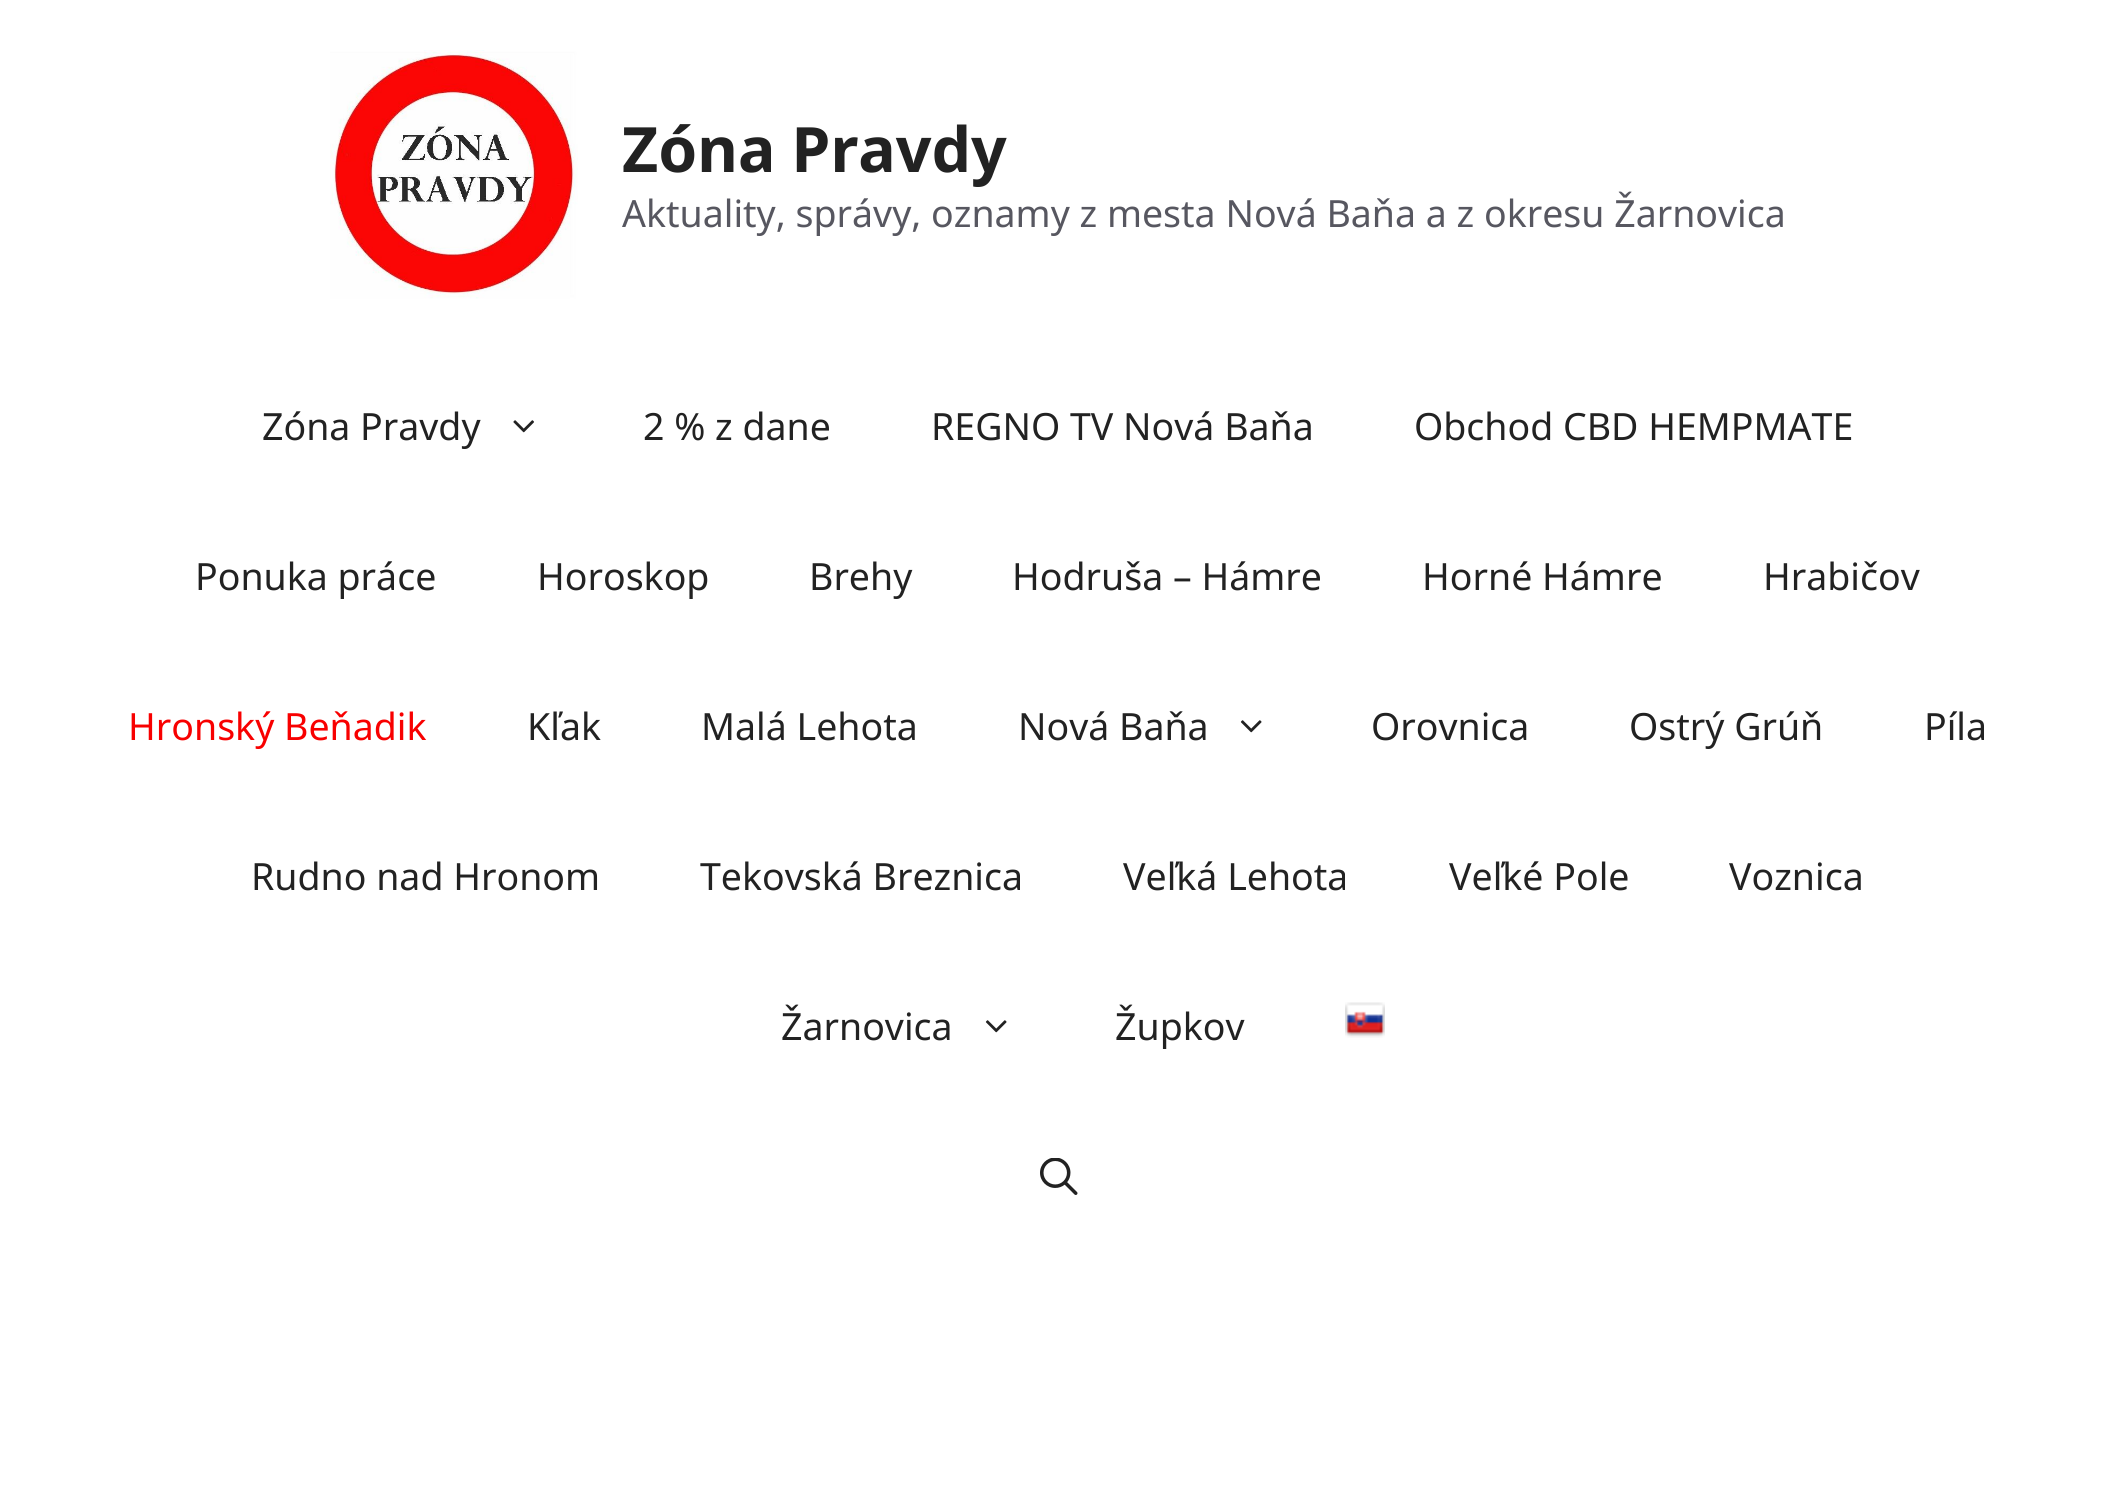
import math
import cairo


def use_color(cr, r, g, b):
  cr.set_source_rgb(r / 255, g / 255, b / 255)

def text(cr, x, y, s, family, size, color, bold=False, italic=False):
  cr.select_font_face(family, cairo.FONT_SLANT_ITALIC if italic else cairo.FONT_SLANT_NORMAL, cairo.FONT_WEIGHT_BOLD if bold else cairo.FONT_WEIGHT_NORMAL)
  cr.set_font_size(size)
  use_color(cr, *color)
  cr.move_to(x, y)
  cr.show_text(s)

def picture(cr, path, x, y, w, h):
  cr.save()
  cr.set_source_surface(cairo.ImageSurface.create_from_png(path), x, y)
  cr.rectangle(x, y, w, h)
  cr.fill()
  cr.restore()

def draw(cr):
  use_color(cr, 255, 255, 255)
  cr.paint()
  picture(cr, "img_01.png", 330, 50, 248, 249)
  picture(cr, "img_02.png", 513, 420, 21, 13)
  picture(cr, "img_03.png", 1240, 720, 22, 13)
  picture(cr, "img_03.png", 985, 1020, 22, 13)
  picture(cr, "img_04.png", 1345, 1002, 40, 36)
  picture(cr, "img_05.png", 1040, 1158, 38, 37)
  text(cr, 622, 172, "Zóna Pravdy", "Noto Sans", 62.5, (34, 34, 34), bold=True)
  text(cr, 622, 227, "Aktuality, správy, oznamy z mesta Nová Baňa a z okresu Žarnovica", "Noto Sans", 37.5, (87, 87, 96))
  text(cr, 262, 440, "Zóna Pravdy", "Noto Sans", 37.5, (34, 34, 34))
  text(cr, 643, 440, "2 % z dane", "Noto Sans", 37.5, (34, 34, 34))
  text(cr, 931, 440, "REGNO TV Nová Baňa", "Noto Sans", 37.5, (34, 34, 34))
  text(cr, 1414, 440, "Obchod CBD HEMPMATE", "Noto Sans", 37.5, (34, 34, 34))
  text(cr, 195, 590, "Ponuka práce", "Noto Sans", 37.5, (34, 34, 34))
  text(cr, 537, 590, "Horoskop", "Noto Sans", 37.5, (34, 34, 34))
  text(cr, 809, 590, "Brehy", "Noto Sans", 37.5, (34, 34, 34))
  text(cr, 1012, 590, "Hodruša – Hámre", "Noto Sans", 37.5, (34, 34, 34))
  text(cr, 1422, 590, "Horné Hámre", "Noto Sans", 37.5, (34, 34, 34))
  text(cr, 1763, 590, "Hrabičov", "Noto Sans", 37.5, (34, 34, 34))
  text(cr, 128, 740, "Hronský Beňadik", "Noto Sans", 37.5, (248, 0, 0))
  text(cr, 527, 740, "Kľak", "Noto Sans", 37.5, (34, 34, 34))
  text(cr, 701, 740, "Malá Lehota", "Noto Sans", 37.5, (34, 34, 34))
  text(cr, 1018, 740, "Nová Baňa", "Noto Sans", 37.5, (34, 34, 34))
  text(cr, 1371, 740, "Orovnica", "Noto Sans", 37.5, (34, 34, 34))
  text(cr, 1629, 740, "Ostrý Grúň", "Noto Sans", 37.5, (34, 34, 34))
  text(cr, 1924, 740, "Píla", "Noto Sans", 37.5, (34, 34, 34))
  text(cr, 251, 890, "Rudno nad Hronom", "Noto Sans", 37.5, (34, 34, 34))
  text(cr, 700, 890, "Tekovská Breznica", "Noto Sans", 37.5, (34, 34, 34))
  text(cr, 1123, 890, "Veľká Lehota", "Noto Sans", 37.5, (34, 34, 34))
  text(cr, 1449, 890, "Veľké Pole", "Noto Sans", 37.5, (34, 34, 34))
  text(cr, 1729, 890, "Voznica", "Noto Sans", 37.5, (34, 34, 34))
  text(cr, 781, 1040, "Žarnovica", "Noto Sans", 37.5, (34, 34, 34))
  text(cr, 1115, 1040, "Župkov", "Noto Sans", 37.5, (34, 34, 34))


surface = cairo.ImageSurface(cairo.FORMAT_RGB24, 2115, 1499)
cr = cairo.Context(surface)
options = cairo.FontOptions()
options.set_hint_metrics(cairo.HINT_METRICS_OFF)
options.set_hint_style(cairo.HINT_STYLE_NONE)
cr.set_font_options(options)
cr.set_miter_limit(4)
draw(cr)
surface.write_to_png("out.png")
